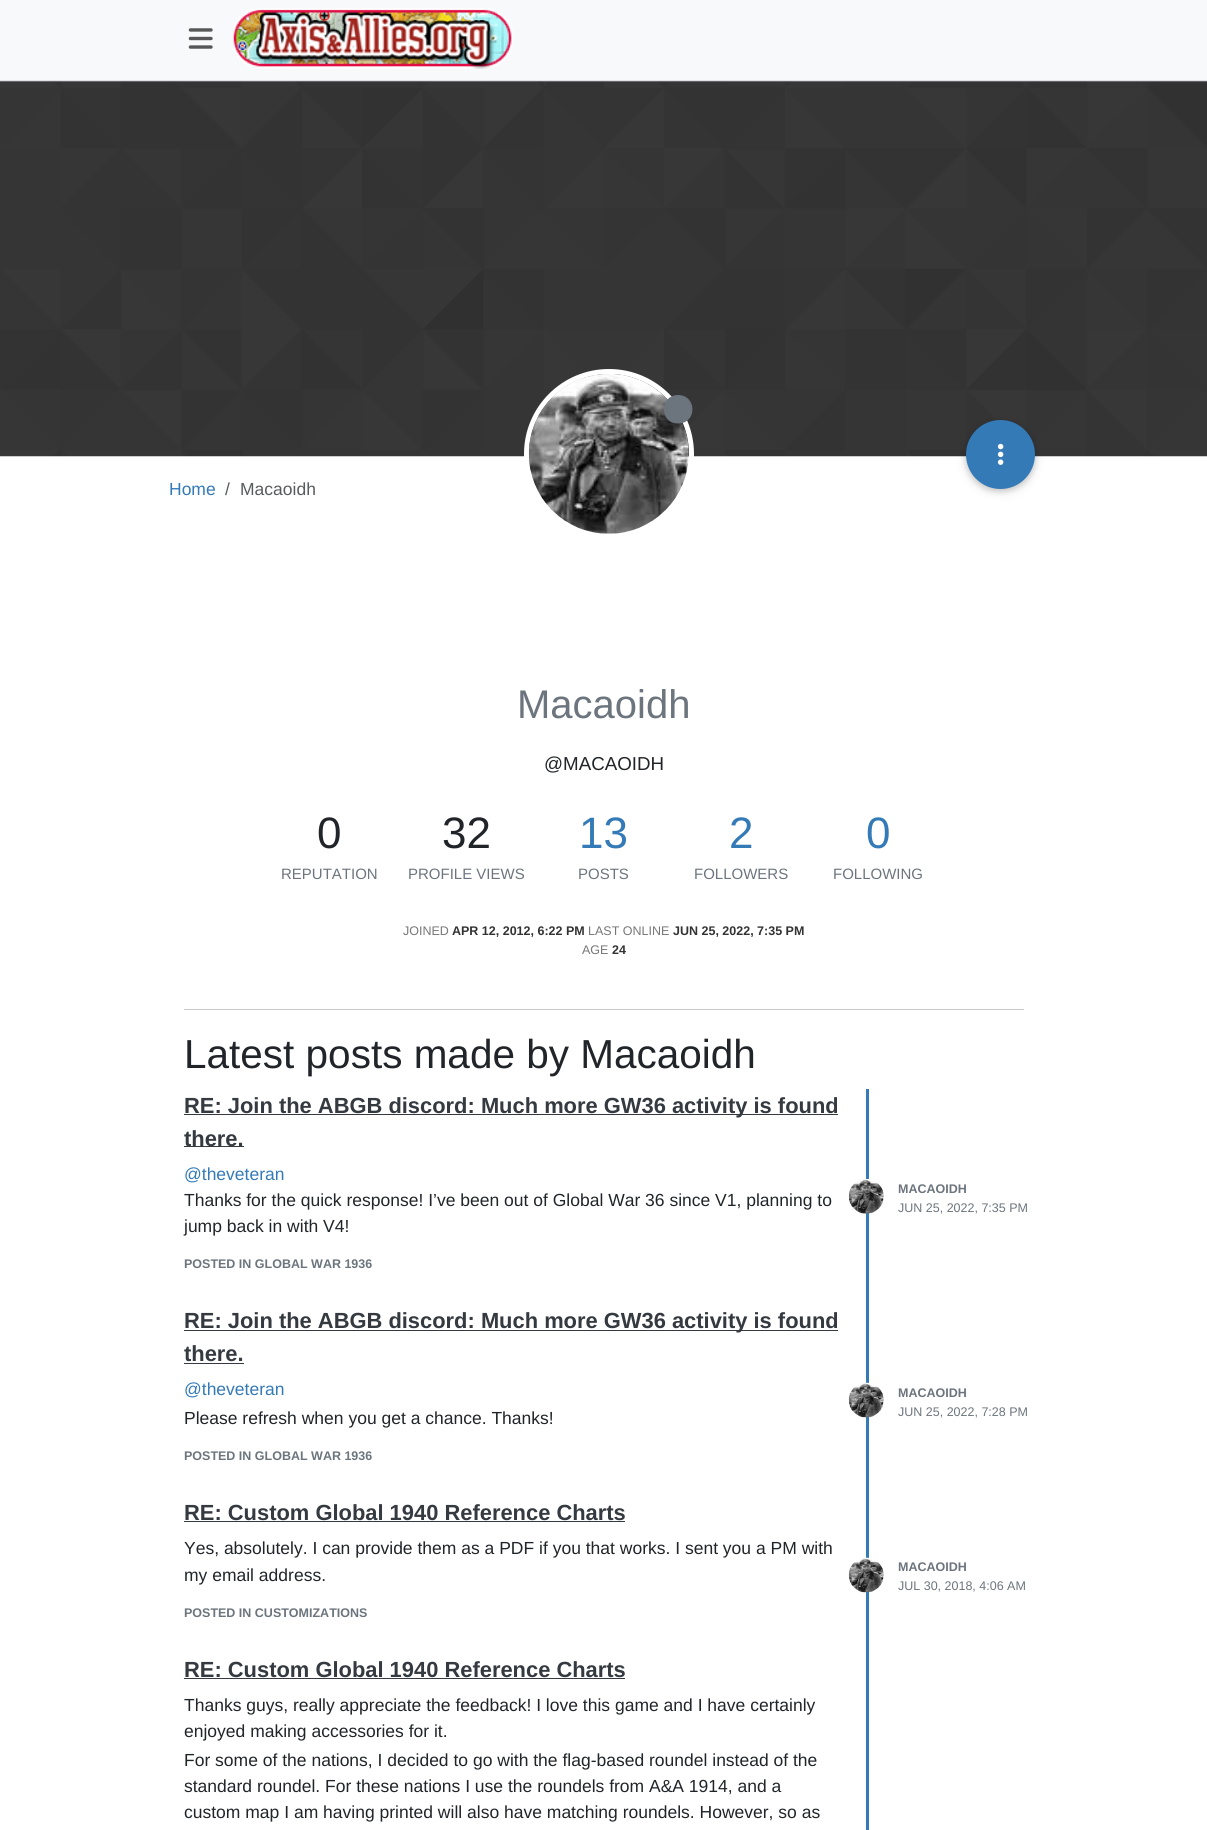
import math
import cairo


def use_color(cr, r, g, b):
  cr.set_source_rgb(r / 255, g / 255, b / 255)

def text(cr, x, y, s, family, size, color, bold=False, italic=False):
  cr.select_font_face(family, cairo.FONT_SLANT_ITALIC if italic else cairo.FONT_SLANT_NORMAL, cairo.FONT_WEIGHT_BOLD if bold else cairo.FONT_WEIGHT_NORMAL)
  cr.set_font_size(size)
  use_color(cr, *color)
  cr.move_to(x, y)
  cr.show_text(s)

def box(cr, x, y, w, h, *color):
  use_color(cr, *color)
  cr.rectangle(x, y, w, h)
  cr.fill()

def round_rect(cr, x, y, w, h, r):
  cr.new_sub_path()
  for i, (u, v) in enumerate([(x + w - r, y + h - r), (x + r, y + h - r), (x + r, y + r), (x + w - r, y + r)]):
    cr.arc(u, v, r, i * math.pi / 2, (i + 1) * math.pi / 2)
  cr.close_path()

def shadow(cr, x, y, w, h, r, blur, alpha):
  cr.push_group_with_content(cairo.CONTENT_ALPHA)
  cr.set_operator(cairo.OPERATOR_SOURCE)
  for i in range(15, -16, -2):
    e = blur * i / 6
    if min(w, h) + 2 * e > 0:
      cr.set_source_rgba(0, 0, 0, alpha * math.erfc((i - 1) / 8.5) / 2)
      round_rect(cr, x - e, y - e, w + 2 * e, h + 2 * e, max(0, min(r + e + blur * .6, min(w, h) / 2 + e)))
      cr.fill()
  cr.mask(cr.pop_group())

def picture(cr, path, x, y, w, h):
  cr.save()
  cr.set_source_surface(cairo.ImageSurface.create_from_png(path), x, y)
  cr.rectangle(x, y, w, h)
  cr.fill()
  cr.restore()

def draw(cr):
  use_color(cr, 255, 255, 255)
  cr.paint()
  box(cr, 0, 0, 1207, 80, 248, 249, 250)
  box(cr, 0, 80, 1207, 1, 222, 226, 230)
  picture(cr, "img_01.png", 188, 28, 25, 21)
  picture(cr, "img_02.png", 233, 8, 281, 61)
  picture(cr, "img_03.png", 0, 81, 1207, 376)
  cr.arc(609, 454, 82.5, 0, 2 * math.pi)
  use_color(cr, 255, 255, 255)
  cr.set_line_width(5)
  cr.stroke()
  picture(cr, "img_04.png", 528, 374, 161, 160)
  use_color(cr, 108, 117, 125)
  cr.new_path()
  cr.move_to(678, 423.5)
  cr.curve_to(697.5, 423.5, 697, 395, 678, 395)
  cr.curve_to(659.5, 395, 659, 423.5, 678, 423.5)
  cr.close_path()
  cr.fill()
  use_color(cr, 0, 0, 0)
  shadow(cr, 966, 423, 69, 68, 34, 6, 0.12)
  shadow(cr, 966, 423, 69, 68, 34, 3, 0.16)
  use_color(cr, 51, 122, 183)
  cr.arc(1000.5, 454.5, 34.5, 0, 2 * math.pi)
  cr.fill()
  picture(cr, "img_05.png", 997, 443, 7, 22)
  box(cr, 184, 1009, 840, 1, 200, 201, 202)
  box(cr, 866, 1089, 3, 741, 51, 122, 183)
  box(cr, 184, 1114, 654, 1, 52, 58, 64)
  box(cr, 184, 1146, 60, 1, 52, 58, 64)
  picture(cr, "img_06.png", 848, 1178, 36, 36)
  box(cr, 184, 1330, 654, 1, 52, 58, 64)
  box(cr, 184, 1363, 60, 1, 52, 58, 64)
  picture(cr, "img_07.png", 848, 1382, 36, 36)
  box(cr, 184, 1521, 441, 1, 52, 58, 64)
  picture(cr, "img_07.png", 848, 1557, 36, 36)
  box(cr, 184, 1678, 441, 1, 52, 58, 64)
  text(cr, 169, 495, "Home", "Liberation Sans", 17.5, (51, 122, 183))
  text(cr, 225, 495, "/", "Liberation Sans", 17.5, (89, 92, 95))
  text(cr, 240, 495, "Macaoidh", "Liberation Sans", 17.5, (89, 92, 95))
  text(cr, 517, 718, "Macaoidh", "Liberation Sans", 40, (108, 117, 125))
  text(cr, 544, 770, "@MACAOIDH", "Liberation Sans", 18.75, (33, 37, 41))
  text(cr, 317, 848, "0", "Liberation Sans", 44, (33, 37, 41))
  text(cr, 281, 879, "REPUTATION", "Liberation Sans", 15, (108, 117, 125))
  text(cr, 442, 848, "32", "Liberation Sans", 44, (33, 37, 41))
  text(cr, 408, 879, "PROFILE VIEWS", "Liberation Sans", 15, (108, 117, 125))
  text(cr, 579, 848, "13", "Liberation Sans", 44, (51, 122, 183))
  text(cr, 578, 879, "POSTS", "Liberation Sans", 15, (108, 117, 125))
  text(cr, 729, 848, "2", "Liberation Sans", 44, (51, 122, 183))
  text(cr, 694, 879, "FOLLOWERS", "Liberation Sans", 15, (108, 117, 125))
  text(cr, 866, 848, "0", "Liberation Sans", 44, (51, 122, 183))
  text(cr, 833, 879, "FOLLOWING", "Liberation Sans", 15, (108, 117, 125))
  text(cr, 403, 935, "JOINED", "Liberation Sans", 12.5, (119, 119, 119))
  text(cr, 452, 935, "APR 12, 2012, 6:22 PM", "Liberation Sans", 12.5, (51, 51, 51), bold=True)
  text(cr, 588, 935, "LAST ONLINE", "Liberation Sans", 12.5, (119, 119, 119))
  text(cr, 673, 935, "JUN 25, 2022, 7:35 PM", "Liberation Sans", 12.5, (51, 51, 51), bold=True)
  text(cr, 582, 954, "AGE", "Liberation Sans", 12.5, (119, 119, 119))
  text(cr, 612, 954, "24", "Liberation Sans", 12.5, (51, 51, 51), bold=True)
  text(cr, 184, 1068, "Latest posts made by Macaoidh", "Liberation Sans", 40.5, (33, 37, 41))
  text(cr, 184, 1113, "RE: Join the ABGB discord: Much more GW36 activity is found", "Liberation Sans", 21.9, (52, 58, 64), bold=True)
  text(cr, 184, 1146, "there.", "Liberation Sans", 21.9, (52, 58, 64), bold=True)
  text(cr, 184, 1180, "@theveteran", "Liberation Sans", 17.5, (51, 122, 183))
  text(cr, 184, 1206, "Thanks for the quick response! I’ve been out of Global War 36 since V1, planning to", "Liberation Sans", 17.5, (33, 37, 41))
  text(cr, 184, 1232, "jump back in with V4!", "Liberation Sans", 17.5, (33, 37, 41))
  text(cr, 898, 1193, "MACAOIDH", "Liberation Sans", 12.5, (108, 117, 125), bold=True)
  text(cr, 898, 1212, "JUN 25, 2022, 7:35 PM", "Liberation Sans", 12.5, (108, 117, 125))
  text(cr, 184, 1268, "POSTED IN GLOBAL WAR 1936", "Liberation Sans", 12.5, (108, 117, 125), bold=True)
  text(cr, 184, 1328, "RE: Join the ABGB discord: Much more GW36 activity is found", "Liberation Sans", 21.9, (52, 58, 64), bold=True)
  text(cr, 184, 1361, "there.", "Liberation Sans", 21.9, (52, 58, 64), bold=True)
  text(cr, 184, 1395, "@theveteran", "Liberation Sans", 17.5, (51, 122, 183))
  text(cr, 184, 1424, "Please refresh when you get a chance. Thanks!", "Liberation Sans", 17.5, (33, 37, 41))
  text(cr, 898, 1397, "MACAOIDH", "Liberation Sans", 12.5, (108, 117, 125), bold=True)
  text(cr, 898, 1416, "JUN 25, 2022, 7:28 PM", "Liberation Sans", 12.5, (108, 117, 125))
  text(cr, 184, 1460, "POSTED IN GLOBAL WAR 1936", "Liberation Sans", 12.5, (108, 117, 125), bold=True)
  text(cr, 184, 1520, "RE: Custom Global 1940 Reference Charts", "Liberation Sans", 21.9, (52, 58, 64), bold=True)
  text(cr, 184, 1554, "Yes, absolutely. I can provide them as a PDF if you that works. I sent you a PM with", "Liberation Sans", 17.5, (33, 37, 41))
  text(cr, 184, 1581, "my email address.", "Liberation Sans", 17.5, (33, 37, 41))
  text(cr, 898, 1571, "MACAOIDH", "Liberation Sans", 12.5, (108, 117, 125), bold=True)
  text(cr, 898, 1590, "JUL 30, 2018, 4:06 AM", "Liberation Sans", 12.5, (108, 117, 125))
  text(cr, 184, 1617, "POSTED IN CUSTOMIZATIONS", "Liberation Sans", 12.5, (108, 117, 125), bold=True)
  text(cr, 184, 1677, "RE: Custom Global 1940 Reference Charts", "Liberation Sans", 21.9, (52, 58, 64), bold=True)
  text(cr, 184, 1711, "Thanks guys, really appreciate the feedback! I love this game and I have certainly", "Liberation Sans", 17.5, (33, 37, 41))
  text(cr, 184, 1737, "enjoyed making accessories for it.", "Liberation Sans", 17.5, (33, 37, 41))
  text(cr, 184, 1766, "For some of the nations, I decided to go with the flag-based roundel instead of the", "Liberation Sans", 17.5, (33, 37, 41))
  text(cr, 184, 1792, "standard roundel. For these nations I use the roundels from A&A 1914, and a", "Liberation Sans", 17.5, (33, 37, 41))
  text(cr, 184, 1818, "custom map I am having printed will also have matching roundels. However, so as", "Liberation Sans", 17.5, (33, 37, 41))


surface = cairo.ImageSurface(cairo.FORMAT_RGB24, 1207, 1830)
cr = cairo.Context(surface)
options = cairo.FontOptions()
options.set_hint_metrics(cairo.HINT_METRICS_OFF)
options.set_hint_style(cairo.HINT_STYLE_NONE)
cr.set_font_options(options)
cr.set_miter_limit(4)
draw(cr)
surface.write_to_png("out.png")
